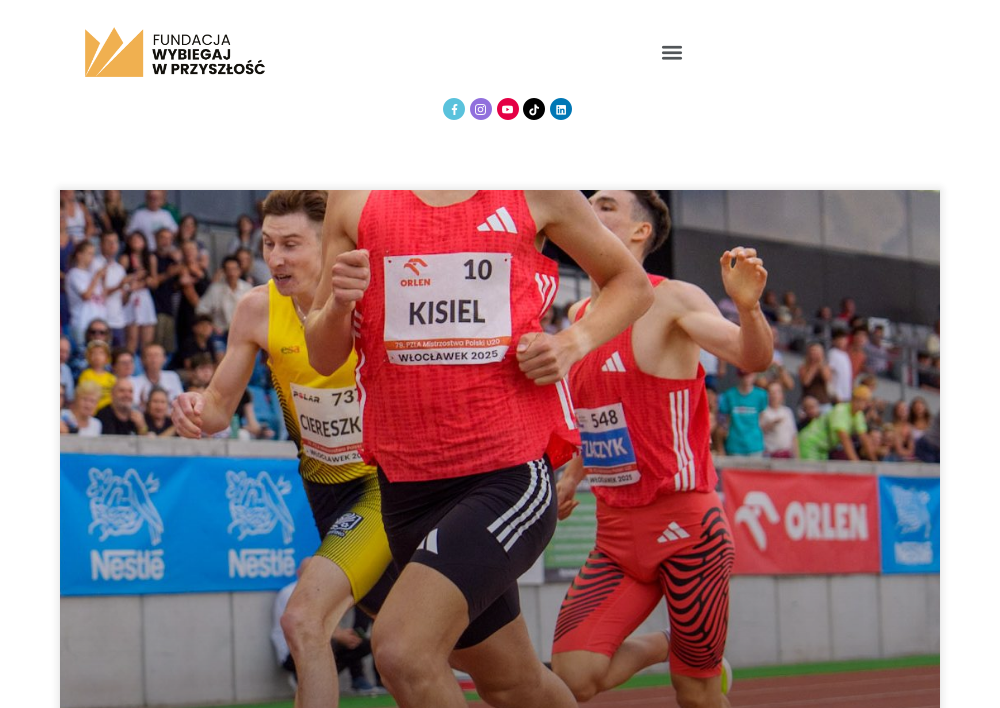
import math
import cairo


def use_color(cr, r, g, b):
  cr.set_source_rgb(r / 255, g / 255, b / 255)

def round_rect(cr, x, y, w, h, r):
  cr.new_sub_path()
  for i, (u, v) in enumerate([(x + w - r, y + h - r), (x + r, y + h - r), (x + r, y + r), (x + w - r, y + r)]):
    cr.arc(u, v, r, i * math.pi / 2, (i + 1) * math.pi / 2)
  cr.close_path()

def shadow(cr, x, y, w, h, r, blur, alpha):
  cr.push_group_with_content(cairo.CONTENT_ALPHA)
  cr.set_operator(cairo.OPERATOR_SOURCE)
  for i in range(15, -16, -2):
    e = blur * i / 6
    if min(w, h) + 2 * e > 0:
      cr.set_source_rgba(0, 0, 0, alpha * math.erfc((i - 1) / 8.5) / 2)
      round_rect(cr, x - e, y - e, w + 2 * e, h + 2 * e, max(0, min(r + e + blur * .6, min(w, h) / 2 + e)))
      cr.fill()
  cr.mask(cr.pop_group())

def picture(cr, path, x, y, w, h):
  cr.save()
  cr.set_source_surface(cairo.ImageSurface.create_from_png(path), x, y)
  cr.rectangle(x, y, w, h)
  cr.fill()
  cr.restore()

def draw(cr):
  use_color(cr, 255, 255, 255)
  cr.paint()
  picture(cr, "img_01.png", 85, 27, 180, 50)
  picture(cr, "img_02.png", 661, 45, 22, 15)
  use_color(cr, 90, 194, 220)
  cr.arc(454, 109, 11, 0, 2 * math.pi)
  cr.fill()
  picture(cr, "img_03.png", 451, 104, 7, 11)
  use_color(cr, 145, 112, 221)
  cr.arc(481, 109, 11, 0, 2 * math.pi)
  cr.fill()
  picture(cr, "img_04.png", 475, 104, 11, 11)
  use_color(cr, 228, 0, 69)
  cr.arc(508, 109, 11, 0, 2 * math.pi)
  cr.fill()
  picture(cr, "img_05.png", 502, 105, 11, 9)
  use_color(cr, 0, 0, 0)
  cr.arc(534, 109, 11, 0, 2 * math.pi)
  cr.fill()
  picture(cr, "img_06.png", 529, 104, 10, 12)
  use_color(cr, 0, 119, 181)
  cr.arc(561, 109, 11, 0, 2 * math.pi)
  cr.fill()
  picture(cr, "img_07.png", 556, 105, 10, 10)
  use_color(cr, 0, 0, 0)
  shadow(cr, 60, 190, 880, 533, 0, 5, 0.15)
  picture(cr, "img_08.png", 60, 190, 880, 518)


surface = cairo.ImageSurface(cairo.FORMAT_RGB24, 1000, 708)
cr = cairo.Context(surface)
options = cairo.FontOptions()
options.set_hint_metrics(cairo.HINT_METRICS_OFF)
options.set_hint_style(cairo.HINT_STYLE_NONE)
cr.set_font_options(options)
cr.set_miter_limit(4)
draw(cr)
surface.write_to_png("out.png")
